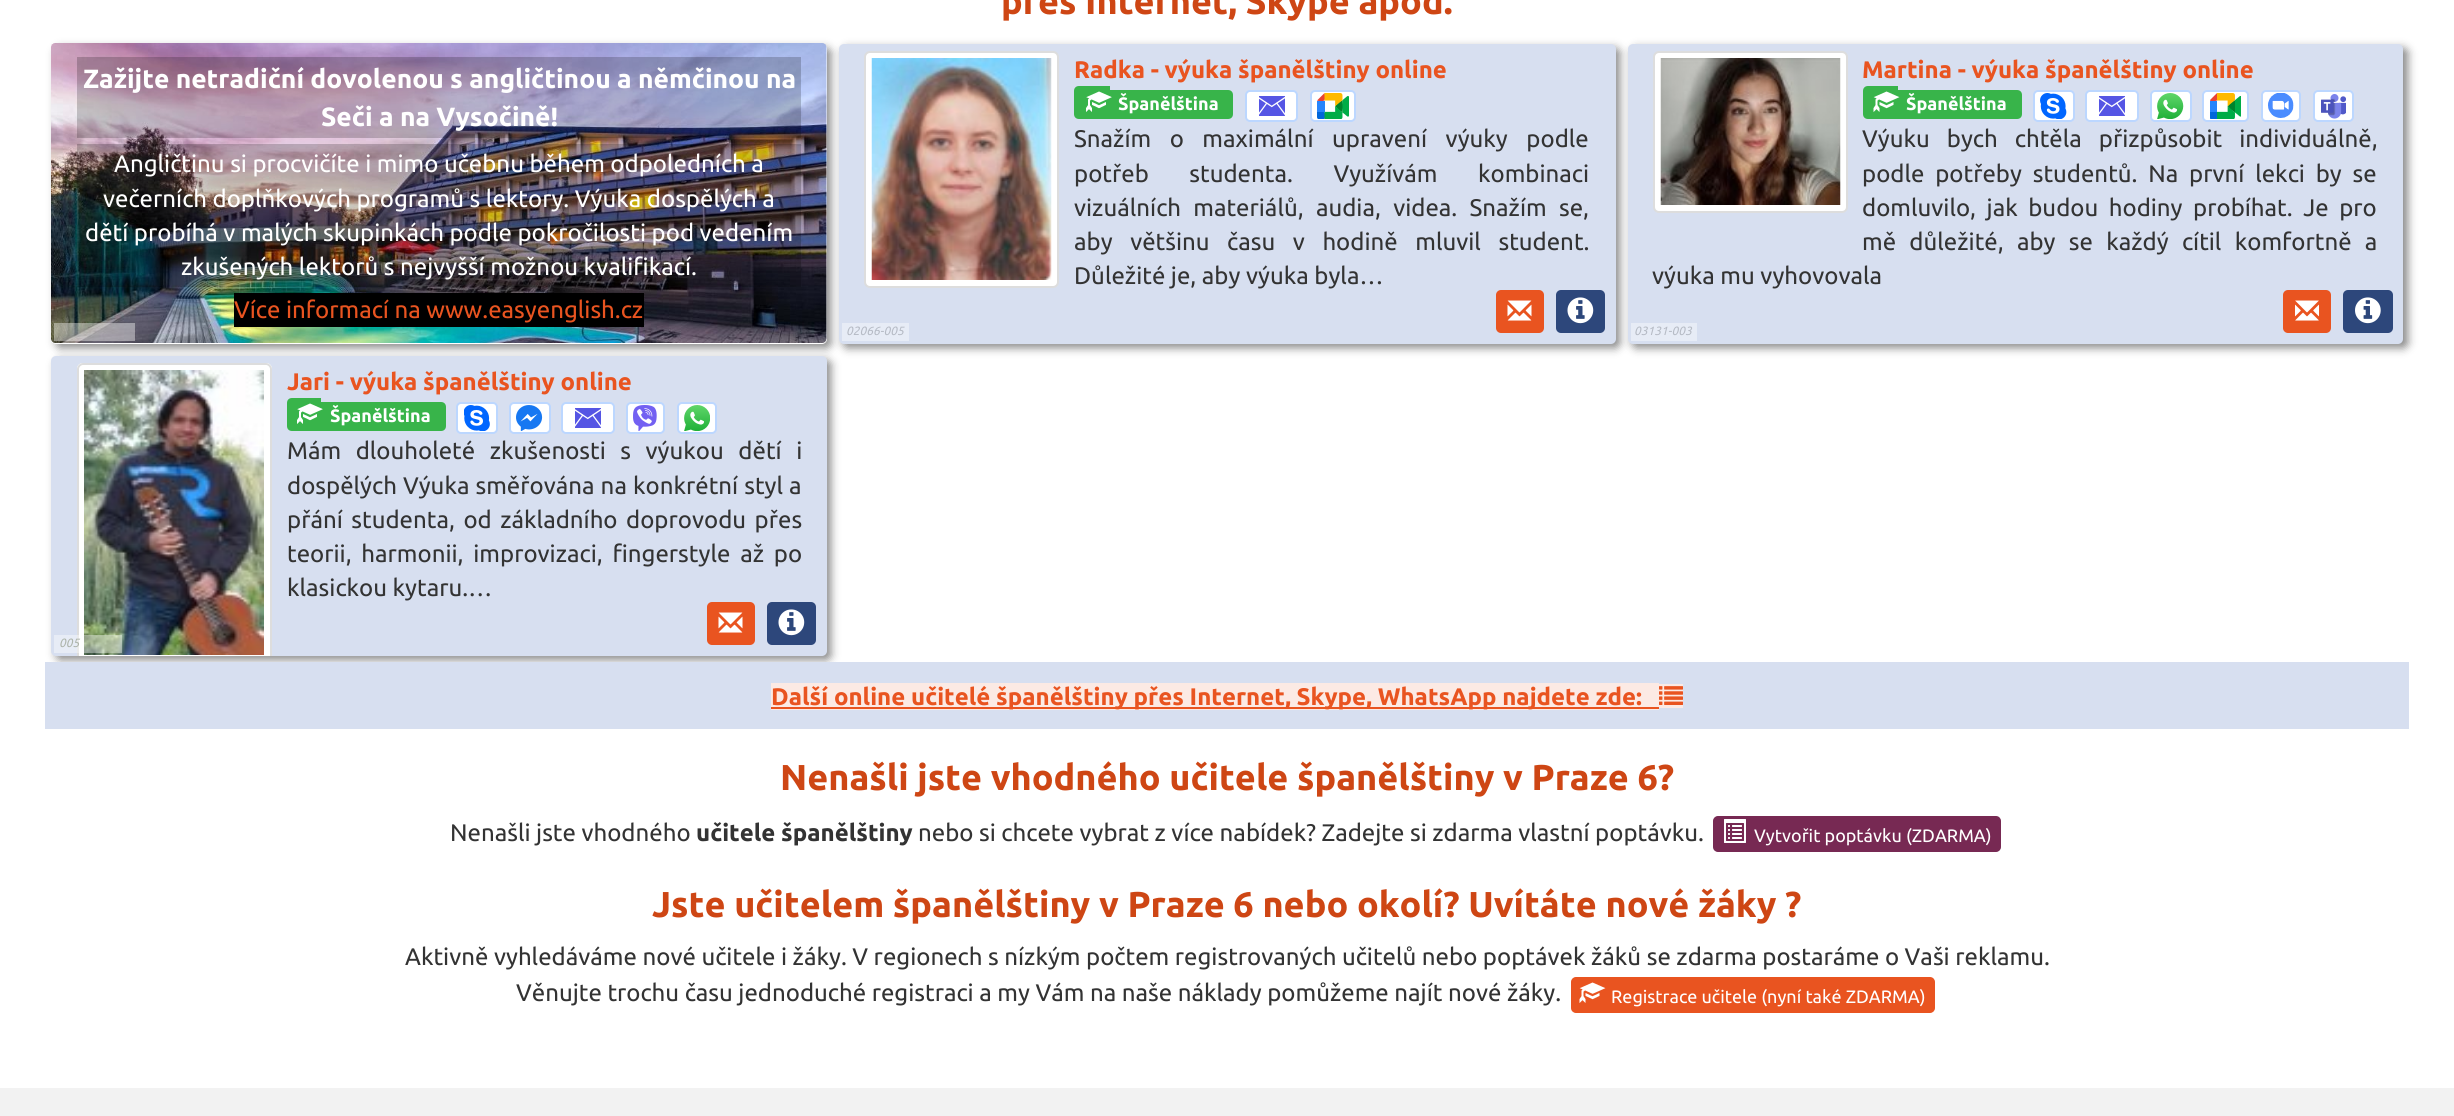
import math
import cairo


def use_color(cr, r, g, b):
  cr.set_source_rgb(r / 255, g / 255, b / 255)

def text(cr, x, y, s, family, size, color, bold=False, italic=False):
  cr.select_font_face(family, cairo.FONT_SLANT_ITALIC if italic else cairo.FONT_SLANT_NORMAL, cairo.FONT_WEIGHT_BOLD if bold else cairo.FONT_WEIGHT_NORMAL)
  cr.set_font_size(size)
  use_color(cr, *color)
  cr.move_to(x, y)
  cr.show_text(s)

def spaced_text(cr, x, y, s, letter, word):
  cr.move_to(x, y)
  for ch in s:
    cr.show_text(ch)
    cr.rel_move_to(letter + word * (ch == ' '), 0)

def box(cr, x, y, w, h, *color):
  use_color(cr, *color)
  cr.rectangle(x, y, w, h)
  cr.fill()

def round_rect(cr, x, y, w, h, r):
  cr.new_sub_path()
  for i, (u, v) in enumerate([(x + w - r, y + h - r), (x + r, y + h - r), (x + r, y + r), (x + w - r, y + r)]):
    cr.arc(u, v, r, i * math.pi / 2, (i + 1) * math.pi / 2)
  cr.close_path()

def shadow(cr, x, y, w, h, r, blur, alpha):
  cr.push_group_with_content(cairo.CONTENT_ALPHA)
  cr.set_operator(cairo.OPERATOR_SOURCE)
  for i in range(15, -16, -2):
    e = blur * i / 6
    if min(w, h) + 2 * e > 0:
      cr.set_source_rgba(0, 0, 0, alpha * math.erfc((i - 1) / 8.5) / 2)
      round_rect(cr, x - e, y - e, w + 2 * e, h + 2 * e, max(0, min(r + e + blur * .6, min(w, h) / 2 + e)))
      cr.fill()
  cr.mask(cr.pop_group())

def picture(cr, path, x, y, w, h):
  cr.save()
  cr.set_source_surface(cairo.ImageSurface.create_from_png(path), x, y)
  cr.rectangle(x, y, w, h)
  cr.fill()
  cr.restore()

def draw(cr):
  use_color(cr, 255, 255, 255)
  cr.paint()
  use_color(cr, 138, 138, 138)
  shadow(cr, 56, 48, 775, 300, 5, 4.5, 1)
  use_color(cr, 255, 255, 255)
  round_rect(cr, 51, 44, 776, 300, 5)
  cr.fill()
  picture(cr, "img_01.png", 51, 43, 776, 300)
  cr.set_source_rgba(0, 0, 0, 0.2)
  cr.rectangle(77, 57, 724, 81)
  cr.fill()
  cr.rectangle(77, 144, 724, 143)
  cr.fill()
  box(cr, 234, 293, 410, 34, 0, 0, 0)
  cr.set_source_rgba(1, 1, 1, 0.4)
  cr.rectangle(54, 323, 81, 18)
  cr.fill()
  use_color(cr, 138, 138, 138)
  shadow(cr, 843, 48, 777, 300, 5, 4.5, 1)
  use_color(cr, 215, 223, 240)
  round_rect(cr, 839, 44, 777, 300, 5)
  cr.fill()
  use_color(cr, 255, 255, 255)
  round_rect(cr, 865, 52, 193, 235, 5)
  cr.fill_preserve()
  use_color(cr, 221, 221, 221)
  cr.stroke()
  picture(cr, "img_02.png", 871, 58, 181, 222)
  use_color(cr, 56, 180, 74)
  cr.new_path()
  cr.move_to(1079, 86)
  cr.line_to(1110, 86)
  cr.line_to(1110, 119)
  cr.line_to(1079, 119)
  cr.curve_to(1076, 119, 1074, 117, 1074, 114)
  cr.line_to(1074, 91)
  cr.curve_to(1074, 88, 1076, 86, 1079, 86)
  cr.close_path()
  cr.fill()
  cr.new_path()
  cr.move_to(1110, 90)
  cr.line_to(1228, 90)
  cr.curve_to(1231, 90, 1233, 92, 1233, 95)
  cr.line_to(1233, 114)
  cr.curve_to(1233, 117, 1231, 119, 1228, 119)
  cr.line_to(1110, 119)
  cr.close_path()
  cr.fill()
  picture(cr, "img_03.png", 1086, 91, 26, 21)
  use_color(cr, 255, 255, 255)
  round_rect(cr, 1246, 91, 51, 30, 4)
  cr.fill_preserve()
  use_color(cr, 188, 215, 255)
  cr.stroke()
  picture(cr, "img_04.png", 1259, 96, 26, 20)
  use_color(cr, 255, 255, 255)
  round_rect(cr, 1311, 91, 44, 30, 4)
  cr.fill_preserve()
  use_color(cr, 188, 215, 255)
  cr.stroke()
  picture(cr, "img_05.png", 1317, 93, 32, 26)
  box(cr, 842, 323, 67, 18, 231, 236, 246)
  use_color(cr, 233, 84, 32)
  round_rect(cr, 1496, 290, 48, 43, 5)
  cr.fill()
  picture(cr, "img_06.png", 1507, 300, 25, 21)
  use_color(cr, 45, 71, 123)
  round_rect(cr, 1556, 290, 49, 43, 5)
  cr.fill()
  picture(cr, "img_07.png", 1567, 297, 27, 27)
  use_color(cr, 138, 138, 138)
  shadow(cr, 1632, 48, 776, 300, 5, 4.5, 1)
  use_color(cr, 215, 223, 240)
  round_rect(cr, 1628, 44, 775, 300, 5)
  cr.fill()
  use_color(cr, 255, 255, 255)
  round_rect(cr, 1654, 52, 193, 160, 5)
  cr.fill_preserve()
  use_color(cr, 221, 221, 221)
  cr.stroke()
  picture(cr, "img_08.png", 1660, 58, 181, 147)
  use_color(cr, 56, 180, 74)
  cr.new_path()
  cr.move_to(1868, 86)
  cr.line_to(1898, 86)
  cr.line_to(1898, 119)
  cr.line_to(1868, 119)
  cr.curve_to(1865, 119, 1863, 117, 1863, 114)
  cr.line_to(1863, 91)
  cr.curve_to(1863, 88, 1865, 86, 1868, 86)
  cr.close_path()
  cr.fill()
  cr.new_path()
  cr.move_to(1898, 90)
  cr.line_to(2017, 90)
  cr.curve_to(2020, 90, 2022, 92, 2022, 95)
  cr.line_to(2022, 114)
  cr.curve_to(2022, 117, 2020, 119, 2017, 119)
  cr.line_to(1898, 119)
  cr.close_path()
  cr.fill()
  picture(cr, "img_09.png", 1873, 91, 27, 21)
  use_color(cr, 255, 255, 255)
  round_rect(cr, 2034, 91, 40, 30, 4)
  cr.fill_preserve()
  use_color(cr, 188, 215, 255)
  cr.stroke()
  picture(cr, "img_10.png", 2040, 93, 27, 26)
  use_color(cr, 255, 255, 255)
  round_rect(cr, 2086, 91, 52, 30, 4)
  cr.fill_preserve()
  use_color(cr, 188, 215, 255)
  cr.stroke()
  picture(cr, "img_04.png", 2099, 96, 26, 20)
  use_color(cr, 255, 255, 255)
  round_rect(cr, 2151, 91, 40, 30, 4)
  cr.fill_preserve()
  use_color(cr, 188, 215, 255)
  cr.stroke()
  picture(cr, "img_11.png", 2157, 93, 27, 26)
  use_color(cr, 255, 255, 255)
  round_rect(cr, 2203, 91, 45, 30, 4)
  cr.fill_preserve()
  use_color(cr, 188, 215, 255)
  cr.stroke()
  picture(cr, "img_12.png", 2210, 93, 31, 26)
  use_color(cr, 255, 255, 255)
  round_rect(cr, 2262, 91, 38, 30, 4)
  cr.fill_preserve()
  use_color(cr, 188, 215, 255)
  cr.stroke()
  picture(cr, "img_13.png", 2268, 93, 26, 25)
  use_color(cr, 255, 255, 255)
  round_rect(cr, 2314, 91, 39, 30, 4)
  cr.fill_preserve()
  use_color(cr, 188, 215, 255)
  cr.stroke()
  picture(cr, "img_14.png", 2321, 94, 25, 25)
  box(cr, 1631, 323, 66, 18, 231, 236, 246)
  use_color(cr, 233, 84, 32)
  round_rect(cr, 2283, 290, 48, 43, 5)
  cr.fill()
  picture(cr, "img_15.png", 2295, 300, 24, 21)
  use_color(cr, 45, 71, 123)
  round_rect(cr, 2343, 290, 50, 43, 5)
  cr.fill()
  picture(cr, "img_16.png", 2355, 297, 26, 27)
  use_color(cr, 138, 138, 138)
  shadow(cr, 56, 360, 775, 300, 5, 4.5, 1)
  use_color(cr, 215, 223, 240)
  round_rect(cr, 51, 356, 776, 300, 5)
  cr.fill()
  use_color(cr, 255, 255, 255)
  cr.new_path()
  cr.move_to(83, 363)
  cr.line_to(266, 363)
  cr.curve_to(269.5, 363, 272, 365.5, 272, 369)
  cr.line_to(272, 656)
  cr.line_to(77, 656)
  cr.line_to(77, 369)
  cr.curve_to(77, 365.5, 79.5, 363, 83, 363)
  cr.close_path()
  cr.fill()
  use_color(cr, 221, 221, 221)
  cr.new_path()
  cr.move_to(83, 363)
  cr.curve_to(80, 363, 77, 366, 77, 369)
  cr.line_to(77, 656)
  cr.line_to(79, 656)
  cr.line_to(79, 369)
  cr.curve_to(79, 367, 81, 365, 83, 365)
  cr.line_to(266, 365)
  cr.curve_to(268, 365, 270, 367, 270, 369)
  cr.line_to(270, 656)
  cr.line_to(272, 656)
  cr.line_to(272, 369)
  cr.curve_to(272, 366, 269, 363, 266, 363)
  cr.close_path()
  cr.fill()
  picture(cr, "img_17.png", 84, 370, 180, 285)
  use_color(cr, 56, 180, 74)
  cr.new_path()
  cr.move_to(292, 398)
  cr.line_to(321, 398)
  cr.line_to(321, 431)
  cr.line_to(292, 431)
  cr.curve_to(289, 431, 287, 429, 287, 426)
  cr.line_to(287, 403)
  cr.curve_to(287, 400, 289, 398, 292, 398)
  cr.close_path()
  cr.fill()
  cr.new_path()
  cr.move_to(321, 402)
  cr.line_to(441, 402)
  cr.curve_to(444, 402, 446, 404, 446, 407)
  cr.line_to(446, 426)
  cr.curve_to(446, 429, 444, 431, 441, 431)
  cr.line_to(321, 431)
  cr.close_path()
  cr.fill()
  picture(cr, "img_03.png", 297, 403, 26, 21)
  use_color(cr, 255, 255, 255)
  round_rect(cr, 457, 403, 40, 30, 4)
  cr.fill_preserve()
  use_color(cr, 188, 215, 255)
  cr.stroke()
  picture(cr, "img_18.png", 464, 405, 26, 26)
  use_color(cr, 255, 255, 255)
  round_rect(cr, 510, 403, 40, 30, 4)
  cr.fill_preserve()
  use_color(cr, 188, 215, 255)
  cr.stroke()
  picture(cr, "img_19.png", 516, 405, 27, 26)
  use_color(cr, 255, 255, 255)
  round_rect(cr, 562, 403, 52, 30, 4)
  cr.fill_preserve()
  use_color(cr, 188, 215, 255)
  cr.stroke()
  picture(cr, "img_04.png", 575, 408, 26, 20)
  use_color(cr, 255, 255, 255)
  round_rect(cr, 627, 403, 37, 30, 4)
  cr.fill_preserve()
  use_color(cr, 188, 215, 255)
  cr.stroke()
  picture(cr, "img_20.png", 633, 405, 24, 26)
  use_color(cr, 255, 255, 255)
  round_rect(cr, 678, 403, 38, 30, 4)
  cr.fill_preserve()
  use_color(cr, 188, 215, 255)
  cr.stroke()
  picture(cr, "img_21.png", 684, 405, 26, 26)
  cr.set_source_rgba(1, 1, 1, 0.4)
  cr.rectangle(54, 635, 68, 18)
  cr.fill()
  use_color(cr, 233, 84, 32)
  round_rect(cr, 707, 602, 48, 43, 5)
  cr.fill()
  picture(cr, "img_06.png", 718, 612, 25, 21)
  use_color(cr, 45, 71, 123)
  round_rect(cr, 767, 602, 49, 43, 5)
  cr.fill()
  picture(cr, "img_07.png", 778, 609, 27, 27)
  box(cr, 45, 662, 2364, 67, 215, 223, 240)
  box(cr, 771, 683, 888, 27, 252, 234, 228)
  box(cr, 1659, 684, 24, 24, 252, 234, 228)
  box(cr, 771, 707, 888, 2, 233, 84, 32)
  picture(cr, "img_22.png", 1659, 686, 24, 19)
  use_color(cr, 119, 41, 83)
  round_rect(cr, 1714, 817, 286, 34, 4)
  cr.fill_preserve()
  cr.stroke()
  picture(cr, "img_23.png", 1724, 819, 22, 24)
  use_color(cr, 233, 84, 32)
  round_rect(cr, 1572, 978, 362, 34, 4)
  cr.fill_preserve()
  cr.stroke()
  picture(cr, "img_24.png", 1579, 982, 27, 21)
  box(cr, 0, 1088, 2454, 28, 242, 242, 242)
  text(cr, 1001, 14, "přes Internet, Skype apod.", "Ubuntu", 36, (206, 70, 20), bold=True)
  text(cr, 83, 88, "Zažijte netradiční dovolenou s angličtinou a němčinou na", "Ubuntu", 26.4, (255, 255, 255), bold=True)
  text(cr, 321, 126, "Seči a na Vysočině!", "Ubuntu", 26.4, (255, 255, 255), bold=True)
  text(cr, 114, 172, "Angličtinu si procvičíte i mimo učebnu během odpoledních a", "Ubuntu", 24, (255, 255, 255))
  text(cr, 103, 207, "večerních doplňkových programů s lektory. Výuka dospělých a", "Ubuntu", 24, (255, 255, 255))
  text(cr, 85, 241, "dětí probíhá v malých skupinkách podle pokročilosti pod vedením", "Ubuntu", 24, (255, 255, 255))
  text(cr, 181, 275, "zkušených lektorů s nejvyšší možnou kvalifikací.", "Ubuntu", 24, (255, 255, 255))
  text(cr, 234, 318, "Více informací na www.easyenglish.cz", "Ubuntu", 24, (233, 84, 32))
  text(cr, 1074, 78, "Radka - výuka španělštiny online", "Ubuntu", 24, (233, 84, 32), bold=True)
  text(cr, 1118, 110, "Španělština", "Ubuntu", 18, (255, 255, 255), bold=True)
  cr.select_font_face("Ubuntu")
  cr.set_font_size(24)
  use_color(cr, 51, 51, 51)
  spaced_text(cr, 1074, 147, "Snažím o maximální upravení výuky podle", 0, 13)
  spaced_text(cr, 1074, 182, "potřeb studenta. Využívám kombinaci", 0, 35)
  spaced_text(cr, 1074, 216, "vizuálních materiálů, audia, videa. Snažím se,", 0, 6.75)
  spaced_text(cr, 1074, 250, "aby většinu času v hodině mluvil student.", 0, 12)
  text(cr, 1074, 284, "Důležité je, aby výuka byla…", "Ubuntu", 24, (51, 51, 51))
  text(cr, 846, 335, "02066-005", "Ubuntu", 12, (182, 187, 197), italic=True)
  text(cr, 1862, 78, "Martina - výuka španělštiny online", "Ubuntu", 24, (233, 84, 32), bold=True)
  text(cr, 1906, 110, "Španělština", "Ubuntu", 18, (255, 255, 255), bold=True)
  cr.select_font_face("Ubuntu")
  cr.set_font_size(24)
  use_color(cr, 51, 51, 51)
  spaced_text(cr, 1862, 147, "Výuku bych chtěla přizpůsobit individuálně,", 0, 11.5)
  spaced_text(cr, 1862, 182, "podle potřeby studentů. Na první lekci by se", 0, 5.25)
  spaced_text(cr, 1862, 216, "domluvilo, jak budou hodiny probíhat. Je pro", 0, 5)
  spaced_text(cr, 1862, 250, "mě důležité, aby se každý cítil komfortně a", 0, 7.75)
  text(cr, 1652, 284, "výuka mu vyhovovala", "Ubuntu", 24, (51, 51, 51))
  text(cr, 1634, 335, "03131-003", "Ubuntu", 12, (182, 187, 197), italic=True)
  text(cr, 287, 390, "Jari - výuka španělštiny online", "Ubuntu", 24, (233, 84, 32), bold=True)
  text(cr, 330, 422, "Španělština", "Ubuntu", 18, (255, 255, 255), bold=True)
  cr.select_font_face("Ubuntu")
  cr.set_font_size(24)
  use_color(cr, 51, 51, 51)
  spaced_text(cr, 287, 459, "Mám dlouholeté zkušenosti s výukou dětí i", 0, 9)
  spaced_text(cr, 287, 494, "dospělých Výuka směřována na konkrétní styl a", 0, 0.5)
  spaced_text(cr, 287, 528, "přání studenta, od základního doprovodu přes", 0, 3)
  spaced_text(cr, 287, 562, "teorii, harmonii, improvizaci, fingerstyle až po", 0, 4.25)
  text(cr, 287, 596, "klasickou kytaru.…", "Ubuntu", 24, (51, 51, 51))
  text(cr, 59, 647, "005", "Ubuntu", 12, (173, 180, 171), italic=True)
  text(cr, 771, 705, "Další online učitelé španělštiny přes Internet, Skype, WhatsApp najdete zde:", "Ubuntu", 24, (233, 84, 32), bold=True)
  text(cr, 780, 790, "Nenašli jste vhodného učitele španělštiny v Praze 6?", "Ubuntu", 36, (206, 70, 20), bold=True)
  text(cr, 450, 841, "Nenašli jste vhodného", "Ubuntu", 24, (51, 51, 51))
  text(cr, 696, 841, "učitele španělštiny", "Ubuntu", 24, (51, 51, 51), bold=True)
  text(cr, 918, 841, "nebo si chcete vybrat z více nabídek? Zadejte si zdarma vlastní poptávku.", "Ubuntu", 24, (51, 51, 51))
  text(cr, 1754, 842, "Vytvořit poptávku (ZDARMA)", "Ubuntu", 18, (255, 255, 255))
  text(cr, 652, 917, "Jste učitelem španělštiny v Praze 6 nebo okolí? Uvítáte nové žáky ?", "Ubuntu", 36, (206, 70, 20), bold=True)
  text(cr, 405, 965, "Aktivně vyhledáváme nové učitele i žáky. V regionech s nízkým počtem registrovaných učitelů nebo poptávek žáků se zdarma postaráme o Vaši reklamu.", "Ubuntu", 24, (51, 51, 51))
  text(cr, 516, 1001, "Věnujte trochu času jednoduché registraci a my Vám na naše náklady pomůžeme najít nové žáky.", "Ubuntu", 24, (51, 51, 51))
  text(cr, 1611, 1003, "Registrace učitele (nyní také ZDARMA)", "Ubuntu", 18, (255, 255, 255))


surface = cairo.ImageSurface(cairo.FORMAT_RGB24, 2454, 1116)
cr = cairo.Context(surface)
options = cairo.FontOptions()
options.set_hint_metrics(cairo.HINT_METRICS_OFF)
options.set_hint_style(cairo.HINT_STYLE_NONE)
cr.set_font_options(options)
cr.set_miter_limit(4)
draw(cr)
surface.write_to_png("out.png")
